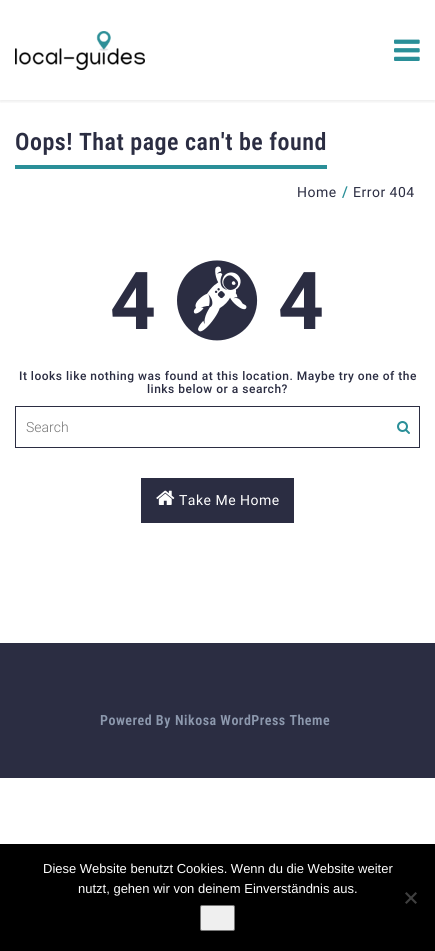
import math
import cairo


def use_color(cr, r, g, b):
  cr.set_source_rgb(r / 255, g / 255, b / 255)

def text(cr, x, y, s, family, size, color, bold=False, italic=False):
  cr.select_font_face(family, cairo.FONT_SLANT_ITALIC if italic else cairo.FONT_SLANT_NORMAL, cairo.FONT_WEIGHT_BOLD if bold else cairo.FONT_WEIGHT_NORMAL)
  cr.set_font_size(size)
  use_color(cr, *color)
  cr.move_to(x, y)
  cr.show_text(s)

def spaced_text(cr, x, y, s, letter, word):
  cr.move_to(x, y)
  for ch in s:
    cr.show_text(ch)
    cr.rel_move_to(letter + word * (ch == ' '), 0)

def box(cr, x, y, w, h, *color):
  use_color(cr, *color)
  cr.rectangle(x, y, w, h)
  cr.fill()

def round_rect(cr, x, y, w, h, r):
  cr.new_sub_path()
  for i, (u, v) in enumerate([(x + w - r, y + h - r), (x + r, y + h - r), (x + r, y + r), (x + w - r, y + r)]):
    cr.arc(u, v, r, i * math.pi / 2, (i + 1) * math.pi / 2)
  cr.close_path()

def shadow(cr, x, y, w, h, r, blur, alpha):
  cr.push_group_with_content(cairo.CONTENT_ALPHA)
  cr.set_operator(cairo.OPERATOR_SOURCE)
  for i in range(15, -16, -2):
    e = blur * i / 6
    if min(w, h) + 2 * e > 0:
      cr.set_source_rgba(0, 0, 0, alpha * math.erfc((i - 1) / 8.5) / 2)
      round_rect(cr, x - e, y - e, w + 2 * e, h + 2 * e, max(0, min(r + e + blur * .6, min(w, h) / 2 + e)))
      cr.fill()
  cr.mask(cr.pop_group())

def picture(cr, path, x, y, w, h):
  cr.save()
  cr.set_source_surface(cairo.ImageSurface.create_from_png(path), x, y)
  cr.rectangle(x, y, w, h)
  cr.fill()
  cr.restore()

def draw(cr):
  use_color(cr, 255, 255, 255)
  cr.paint()
  cr.save()
  cr.rectangle(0, 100, 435, 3)
  cr.clip()
  use_color(cr, 0, 0, 0)
  shadow(cr, 0, 1, 435, 100, 0, 2.5, 0.1)
  cr.restore()
  picture(cr, "img_01.png", 15, 31, 130, 39)
  picture(cr, "img_02.png", 394, 39, 26, 22)
  box(cr, 15, 165, 312, 4, 42, 143, 152)
  picture(cr, "img_03.png", 177, 260, 81, 81)
  cr.rectangle(15.5, 406.5, 404, 41)
  use_color(cr, 43, 45, 66)
  cr.set_line_width(1)
  cr.stroke()
  picture(cr, "img_04.png", 397, 421, 13, 13)
  box(cr, 141, 478, 153, 45, 43, 45, 66)
  picture(cr, "img_05.png", 156, 490, 19, 15)
  box(cr, 0, 643, 435, 135, 43, 45, 66)
  box(cr, 0, 844, 435, 107, 0, 0, 0)
  use_color(cr, 64, 64, 64)
  cr.new_path()
  cr.move_to(415.5, 892)
  cr.line_to(417, 893.5)
  cr.line_to(406.5, 904)
  cr.line_to(405, 902.5)
  cr.close_path()
  cr.fill()
  cr.new_path()
  cr.move_to(405, 893.5)
  cr.line_to(406.5, 892)
  cr.line_to(417, 902.5)
  cr.line_to(415.5, 904)
  cr.close_path()
  cr.fill()
  use_color(cr, 239, 239, 239)
  round_rect(cr, 200.5, 905.5, 34, 25, 1.5)
  cr.fill_preserve()
  use_color(cr, 118, 118, 118)
  cr.stroke()
  cr.select_font_face("Roboto Condensed SemiBold")
  cr.set_font_size(24)
  use_color(cr, 43, 45, 66)
  spaced_text(cr, 15, 150, "Oops! That page can't be found", 0.5, 0)
  cr.select_font_face("Roboto")
  cr.set_font_size(14)
  spaced_text(cr, 297, 197, "Home", 0.5, 0)
  cr.select_font_face("Roboto Medium")
  cr.set_font_size(15)
  use_color(cr, 42, 143, 152)
  spaced_text(cr, 342, 197, "/", 0.5, 0)
  cr.select_font_face("Roboto")
  cr.set_font_size(14)
  use_color(cr, 43, 45, 66)
  spaced_text(cr, 353, 197, "Error 404", 0.5, 0)
  cr.select_font_face("Roboto", cairo.FONT_SLANT_NORMAL, cairo.FONT_WEIGHT_BOLD)
  cr.set_font_size(80)
  spaced_text(cr, 110, 329, "4", 0.5, 0)
  spaced_text(cr, 278, 329, "4", 0.5, 0)
  cr.select_font_face("Roboto Medium")
  cr.set_font_size(12)
  spaced_text(cr, 19, 380, "It looks like nothing was found at this location. Maybe try one of the", 0.5, 0)
  spaced_text(cr, 147, 393, "links below or a search?", 0.5, 0)
  text(cr, 26, 432, "Search", "Roboto Light", 14, (117, 117, 117))
  cr.select_font_face("Roboto")
  use_color(cr, 255, 255, 255)
  spaced_text(cr, 179, 505, "Take Me Home", 0.5, 0)
  cr.select_font_face("Roboto Condensed SemiBold")
  use_color(cr, 141, 153, 174)
  spaced_text(cr, 100, 725, "Powered By", 0.5, 0)
  spaced_text(cr, 175, 725, "Nikosa WordPress Theme", 0.5, 0)
  text(cr, 43, 873, "Diese Website benutzt Cookies. Wenn du die Website weiter", "Liberation Sans", 13, (255, 255, 255))
  text(cr, 78, 893, "nutzt, gehen wir von deinem Einverständnis aus.", "Liberation Sans", 13, (255, 255, 255))


surface = cairo.ImageSurface(cairo.FORMAT_RGB24, 435, 951)
cr = cairo.Context(surface)
options = cairo.FontOptions()
options.set_hint_metrics(cairo.HINT_METRICS_OFF)
options.set_hint_style(cairo.HINT_STYLE_NONE)
cr.set_font_options(options)
cr.set_miter_limit(4)
draw(cr)
surface.write_to_png("out.png")
